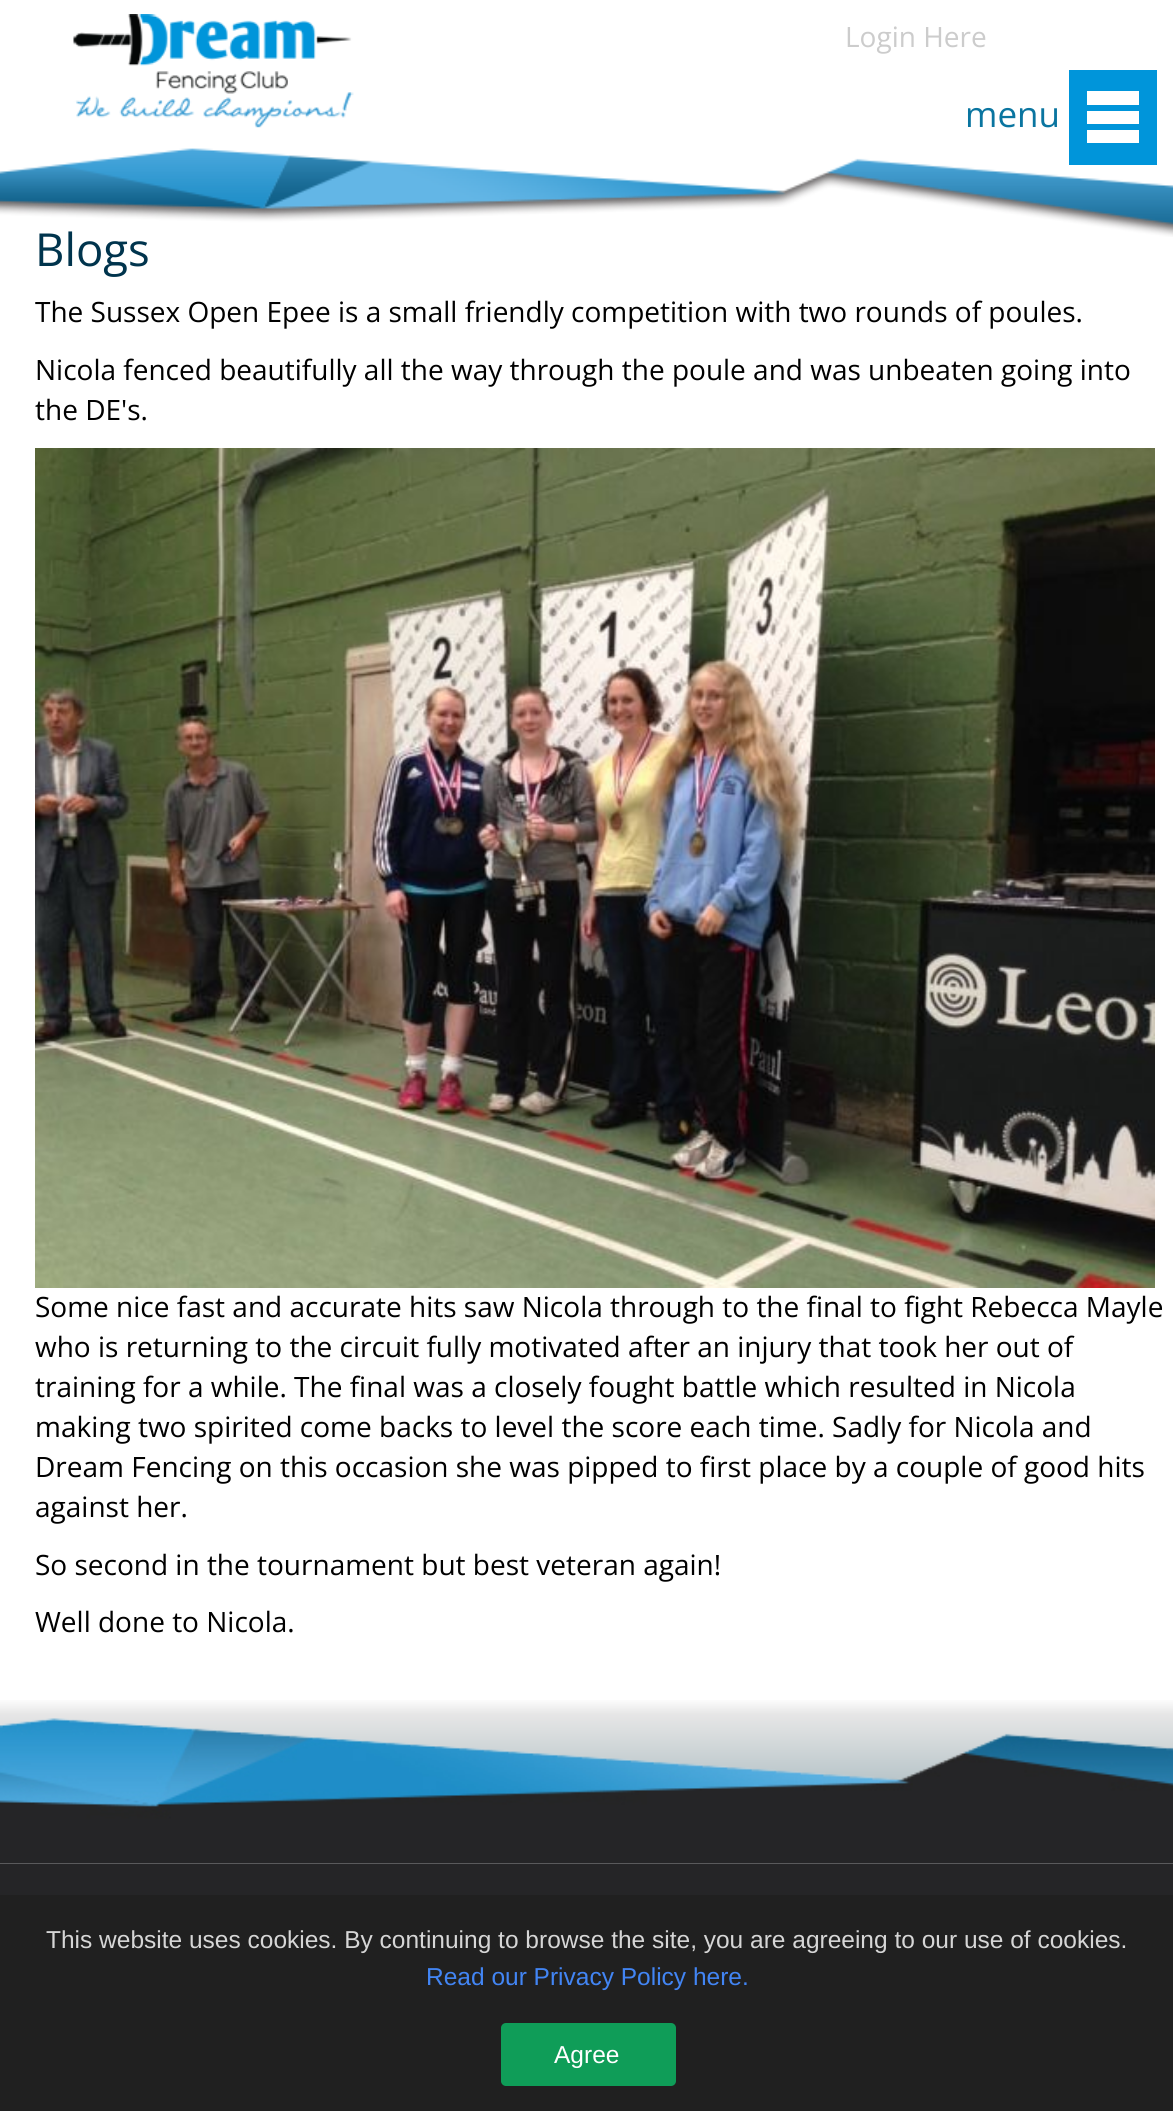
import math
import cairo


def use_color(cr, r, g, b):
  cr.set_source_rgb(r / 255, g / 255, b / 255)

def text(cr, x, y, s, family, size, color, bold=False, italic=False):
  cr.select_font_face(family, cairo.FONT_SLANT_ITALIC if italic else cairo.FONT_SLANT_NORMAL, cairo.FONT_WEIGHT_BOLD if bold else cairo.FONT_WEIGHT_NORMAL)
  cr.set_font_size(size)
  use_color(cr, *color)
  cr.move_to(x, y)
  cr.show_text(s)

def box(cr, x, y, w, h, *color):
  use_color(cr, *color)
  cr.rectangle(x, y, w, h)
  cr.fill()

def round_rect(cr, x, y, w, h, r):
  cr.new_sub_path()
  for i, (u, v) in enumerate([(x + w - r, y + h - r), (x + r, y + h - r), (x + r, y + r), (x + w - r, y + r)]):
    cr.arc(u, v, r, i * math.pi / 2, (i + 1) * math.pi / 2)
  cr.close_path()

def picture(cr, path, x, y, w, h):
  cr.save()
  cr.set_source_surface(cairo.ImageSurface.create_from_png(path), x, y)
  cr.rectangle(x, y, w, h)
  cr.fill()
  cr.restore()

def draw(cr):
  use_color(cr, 255, 255, 255)
  cr.paint()
  picture(cr, "img_02.png", 73, 14, 281, 114)
  picture(cr, "img_03.png", 35, 448, 1120, 840)
  gradient = cairo.LinearGradient(587, 1698, 587, 1789)
  gradient.add_color_stop_rgba(0, 1, 1, 1, 1)
  gradient.add_color_stop_rgba(0.18, 0.902, 0.902, 0.902, 1)
  gradient.add_color_stop_rgba(1, 0.702, 0.757, 0.776, 1)
  cr.set_source(gradient)
  cr.rectangle(0, 1700, 1173, 81)
  cr.fill()
  picture(cr, "img_04.png", 0, 1718, 1173, 146)
  box(cr, 0, 1864, 1173, 31, 37, 37, 39)
  box(cr, 0, 1895, 1173, 216, 32, 32, 32)
  use_color(cr, 15, 157, 88)
  round_rect(cr, 501, 2023, 175, 63, 5)
  cr.fill()
  text(cr, 845, 47, "Login Here", "Open Sans", 28, (204, 204, 204))
  text(cr, 965, 127, "menu", "Open Sans", 35, (10, 117, 160))
  text(cr, 35, 266, "Blogs", "Open Sans", 45.5, (0, 52, 77))
  picture(cr, "img_01.png", 0, 148, 1173, 89)
  box(cr, 1069, 70, 88, 95, 0, 149, 218)
  use_color(cr, 255, 255, 255)
  cr.new_path()
  cr.move_to(1087, 143)
  cr.line_to(1087, 130)
  cr.line_to(1139, 130)
  cr.line_to(1139, 143)
  cr.close_path()
  cr.move_to(1087, 124)
  cr.line_to(1087, 111)
  cr.line_to(1139, 111)
  cr.line_to(1139, 124)
  cr.close_path()
  cr.move_to(1087, 105)
  cr.line_to(1087, 91)
  cr.line_to(1139, 91)
  cr.line_to(1139, 105)
  cr.close_path()
  cr.fill()
  text(cr, 35, 322, "The Sussex Open Epee is a small friendly competition with two rounds of poules.", "Open Sans", 28, (0, 0, 0))
  text(cr, 35, 380, "Nicola fenced beautifully all the way through the poule and was unbeaten going into", "Open Sans", 28, (0, 0, 0))
  text(cr, 35, 420, "the DE's.", "Open Sans", 28, (0, 0, 0))
  text(cr, 35, 1317, "Some nice fast and accurate hits saw Nicola through to the final to fight Rebecca Mayle", "Open Sans", 28, (0, 0, 0))
  text(cr, 35, 1357, "who is returning to the circuit fully motivated after an injury that took her out of", "Open Sans", 28, (0, 0, 0))
  text(cr, 35, 1397, "training for a while. The final was a closely fought battle which resulted in Nicola", "Open Sans", 28, (0, 0, 0))
  text(cr, 35, 1437, "making two spirited come backs to level the score each time. Sadly for Nicola and", "Open Sans", 28, (0, 0, 0))
  text(cr, 35, 1477, "Dream Fencing on this occasion she was pipped to first place by a couple of good hits", "Open Sans", 28, (0, 0, 0))
  text(cr, 35, 1517, "against her.", "Open Sans", 28, (0, 0, 0))
  text(cr, 35, 1575, "So second in the tournament but best veteran again!", "Open Sans", 28, (0, 0, 0))
  text(cr, 35, 1632, "Well done to Nicola.", "Open Sans", 28, (0, 0, 0))
  text(cr, 46, 1948, "This website uses cookies. By continuing to browse the site, you are agreeing to our use of cookies.", "Liberation Sans", 24.5, (214, 214, 214))
  text(cr, 426, 1985, "Read our Privacy Policy here.", "Liberation Sans", 24.5, (66, 133, 244))
  text(cr, 554, 2063, "Agree", "Liberation Sans", 24.5, (255, 255, 255))


surface = cairo.ImageSurface(cairo.FORMAT_RGB24, 1173, 2111)
cr = cairo.Context(surface)
options = cairo.FontOptions()
options.set_hint_metrics(cairo.HINT_METRICS_OFF)
options.set_hint_style(cairo.HINT_STYLE_NONE)
cr.set_font_options(options)
cr.set_miter_limit(4)
draw(cr)
surface.write_to_png("out.png")
